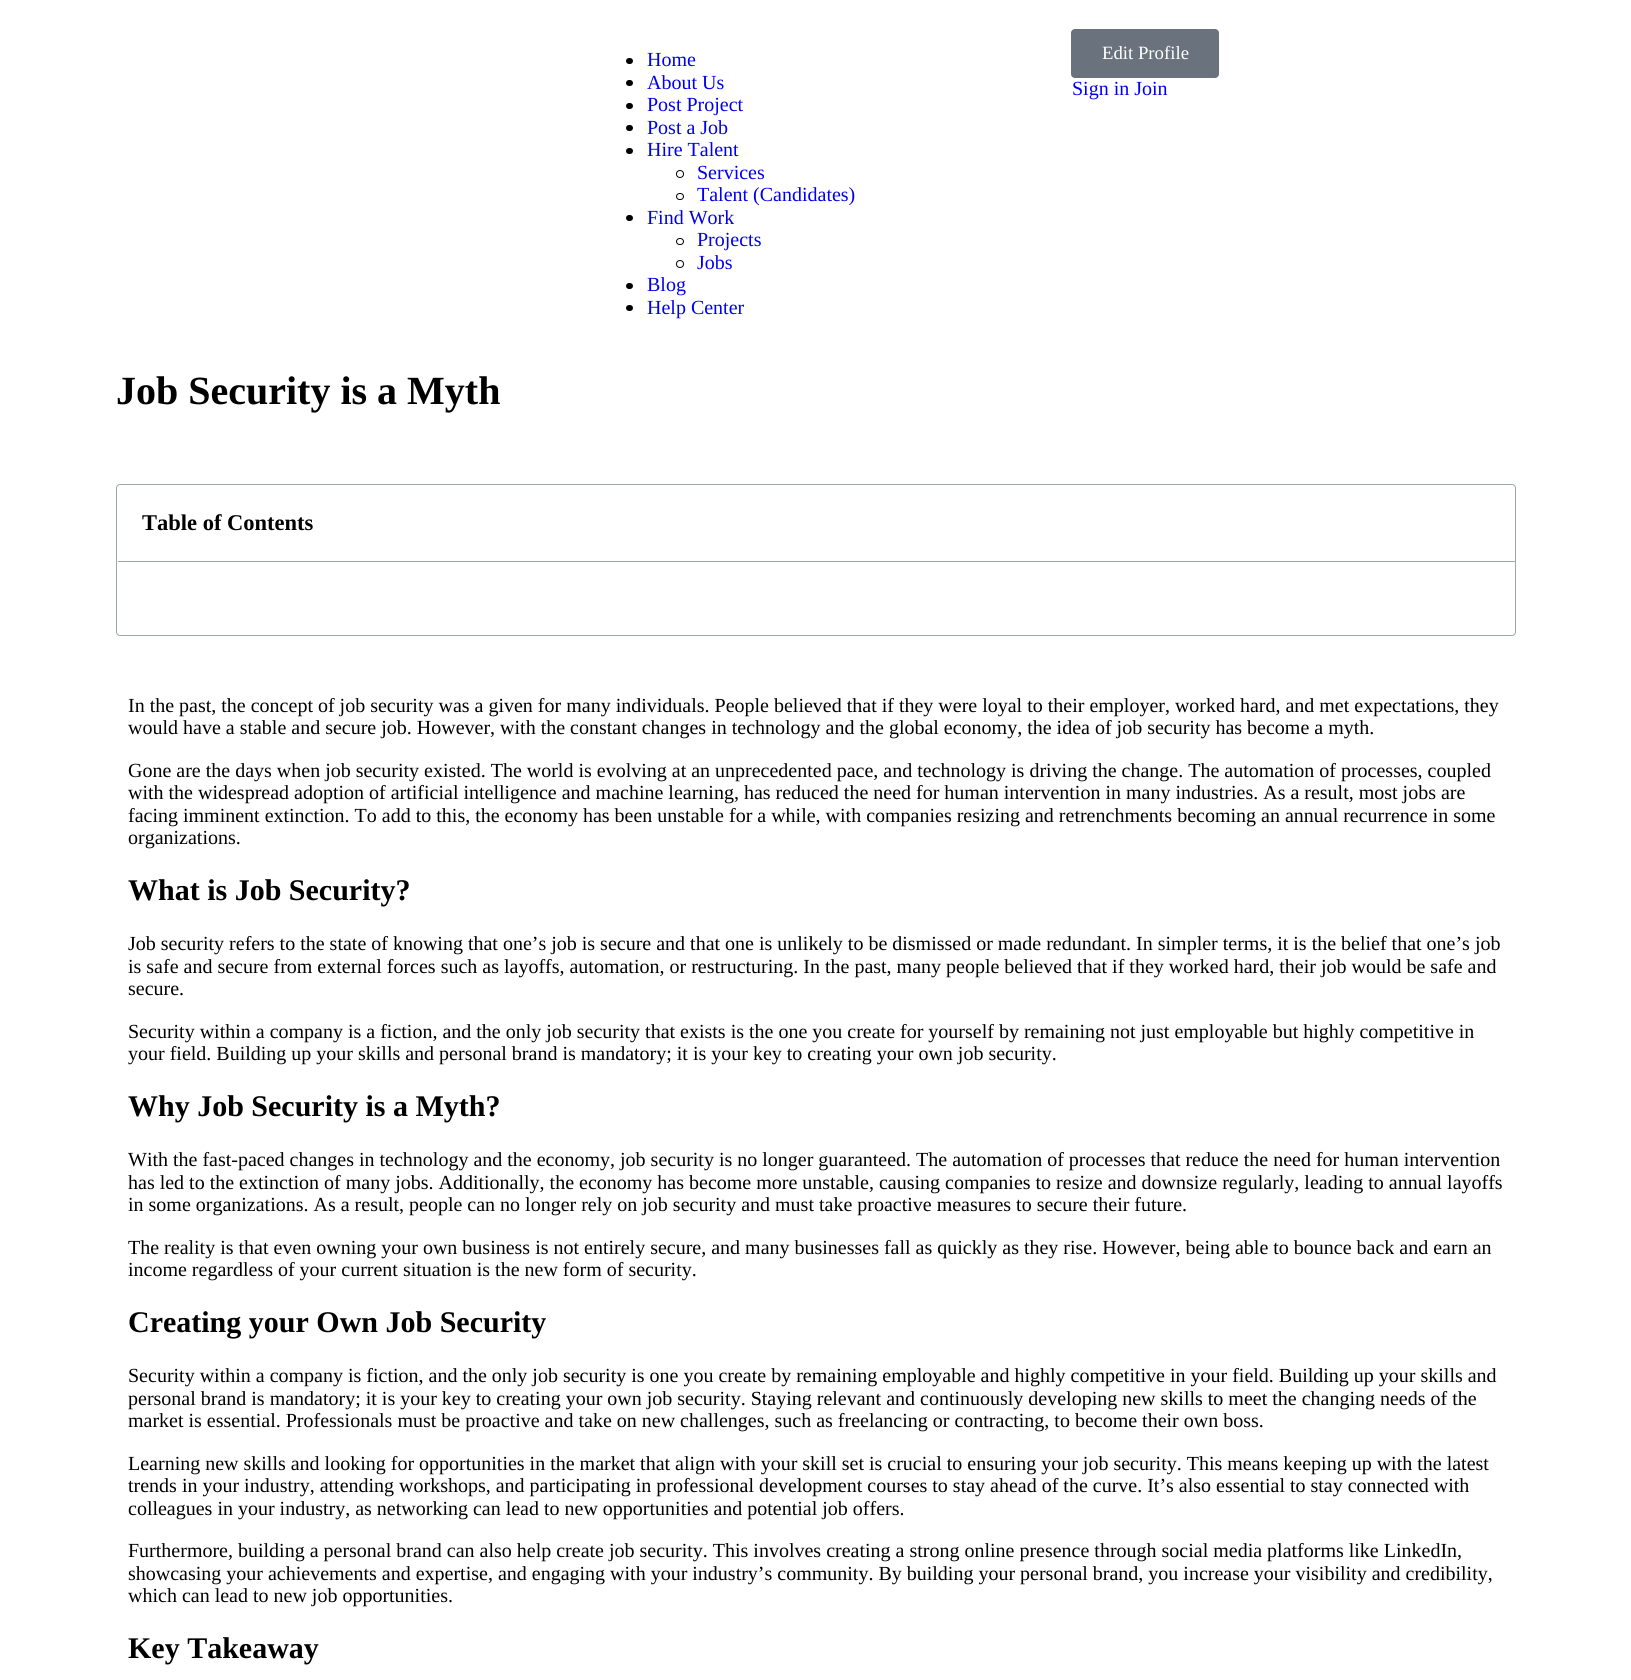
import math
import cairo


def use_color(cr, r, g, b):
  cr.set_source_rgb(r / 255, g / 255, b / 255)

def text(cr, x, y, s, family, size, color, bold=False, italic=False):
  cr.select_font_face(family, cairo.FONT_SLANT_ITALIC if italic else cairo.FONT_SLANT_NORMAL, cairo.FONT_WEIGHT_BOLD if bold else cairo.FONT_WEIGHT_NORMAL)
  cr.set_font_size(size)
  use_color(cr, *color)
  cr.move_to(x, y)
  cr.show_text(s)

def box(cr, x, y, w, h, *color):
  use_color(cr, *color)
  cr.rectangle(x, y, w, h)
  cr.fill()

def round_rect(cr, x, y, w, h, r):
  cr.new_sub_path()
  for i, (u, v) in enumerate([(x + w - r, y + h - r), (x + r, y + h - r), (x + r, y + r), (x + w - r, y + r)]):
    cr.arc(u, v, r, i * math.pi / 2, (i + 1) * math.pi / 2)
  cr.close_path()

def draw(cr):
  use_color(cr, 255, 255, 255)
  cr.paint()
  use_color(cr, 0, 0, 0)
  round_rect(cr, 626, 58, 7, 6, 3)
  cr.fill()
  round_rect(cr, 626, 80, 7, 6, 3)
  cr.fill()
  round_rect(cr, 626, 103, 7, 6, 3)
  cr.fill()
  round_rect(cr, 626, 125, 7, 6, 3)
  cr.fill()
  round_rect(cr, 626, 148, 7, 6, 3)
  cr.fill()
  cr.arc(680, 174, 3.5, 0, 2 * math.pi)
  cr.set_line_width(1)
  cr.stroke()
  round_rect(cr, 676.5, 193.5, 7, 6, 3)
  cr.stroke()
  round_rect(cr, 626, 215, 7, 6, 3)
  cr.fill()
  round_rect(cr, 676.5, 238.5, 7, 6, 3)
  cr.stroke()
  cr.arc(680, 264, 3.5, 0, 2 * math.pi)
  cr.stroke()
  round_rect(cr, 626, 283, 7, 6, 3)
  cr.fill()
  round_rect(cr, 626, 305, 7, 6, 3)
  cr.fill()
  use_color(cr, 105, 114, 125)
  round_rect(cr, 1071, 29, 148, 49, 4)
  cr.fill()
  round_rect(cr, 116.5, 484.5, 1399, 151, 3.5)
  use_color(cr, 157, 165, 174)
  cr.stroke()
  box(cr, 118, 561, 1397, 1, 157, 165, 174)
  text(cr, 647, 66, "Home", "Liberation Serif", 20, (0, 0, 238))
  text(cr, 647, 89, "About Us", "Liberation Serif", 20, (0, 0, 238))
  text(cr, 647, 111, "Post Project", "Liberation Serif", 20, (0, 0, 238))
  text(cr, 647, 134, "Post a Job", "Liberation Serif", 20, (0, 0, 238))
  text(cr, 647, 156, "Hire Talent", "Liberation Serif", 20, (0, 0, 238))
  text(cr, 697, 179, "Services", "Liberation Serif", 20, (0, 0, 238))
  text(cr, 697, 201, "Talent (Candidates)", "Liberation Serif", 20, (0, 0, 238))
  text(cr, 647, 224, "Find Work", "Liberation Serif", 20, (0, 0, 238))
  text(cr, 697, 246, "Projects", "Liberation Serif", 20, (0, 0, 238))
  text(cr, 697, 269, "Jobs", "Liberation Serif", 20, (0, 0, 238))
  text(cr, 647, 291, "Blog", "Liberation Serif", 20, (0, 0, 238))
  text(cr, 647, 314, "Help Center", "Liberation Serif", 20, (0, 0, 238))
  text(cr, 1102, 59, "Edit Profile", "Liberation Serif", 18.75, (255, 255, 255))
  text(cr, 1072, 95, "Sign in Join", "Liberation Serif", 20, (0, 0, 238))
  text(cr, 116, 404, "Job Security is a Myth", "Liberation Serif", 40, (0, 0, 0), bold=True)
  text(cr, 142, 530, "Table of Contents", "Liberation Serif", 22.5, (0, 0, 0), bold=True)
  text(cr, 128, 712, "In the past, the concept of job security was a given for many individuals. People believed that if they were loyal to their employer, worked hard, and met expectations, they", "Liberation Serif", 20, (0, 0, 0))
  text(cr, 128, 734, "would have a stable and secure job. However, with the constant changes in technology and the global economy, the idea of job security has become a myth.", "Liberation Serif", 20, (0, 0, 0))
  text(cr, 128, 777, "Gone are the days when job security existed. The world is evolving at an unprecedented pace, and technology is driving the change. The automation of processes, coupled", "Liberation Serif", 20, (0, 0, 0))
  text(cr, 128, 799, "with the widespread adoption of artificial intelligence and machine learning, has reduced the need for human intervention in many industries. As a result, most jobs are", "Liberation Serif", 20, (0, 0, 0))
  text(cr, 128, 822, "facing imminent extinction. To add to this, the economy has been unstable for a while, with companies resizing and retrenchments becoming an annual recurrence in some", "Liberation Serif", 20, (0, 0, 0))
  text(cr, 128, 844, "organizations.", "Liberation Serif", 20, (0, 0, 0))
  text(cr, 128, 900, "What is Job Security?", "Liberation Serif", 30, (0, 0, 0), bold=True)
  text(cr, 128, 950, "Job security refers to the state of knowing that one’s job is secure and that one is unlikely to be dismissed or made redundant. In simpler terms, it is the belief that one’s job", "Liberation Serif", 20, (0, 0, 0))
  text(cr, 128, 973, "is safe and secure from external forces such as layoffs, automation, or restructuring. In the past, many people believed that if they worked hard, their job would be safe and", "Liberation Serif", 20, (0, 0, 0))
  text(cr, 128, 995, "secure.", "Liberation Serif", 20, (0, 0, 0))
  text(cr, 128, 1038, "Security within a company is a fiction, and the only job security that exists is the one you create for yourself by remaining not just employable but highly competitive in", "Liberation Serif", 20, (0, 0, 0))
  text(cr, 128, 1060, "your field. Building up your skills and personal brand is mandatory; it is your key to creating your own job security.", "Liberation Serif", 20, (0, 0, 0))
  text(cr, 128, 1116, "Why Job Security is a Myth?", "Liberation Serif", 30, (0, 0, 0), bold=True)
  text(cr, 128, 1166, "With the fast-paced changes in technology and the economy, job security is no longer guaranteed. The automation of processes that reduce the need for human intervention", "Liberation Serif", 20, (0, 0, 0))
  text(cr, 128, 1189, "has led to the extinction of many jobs. Additionally, the economy has become more unstable, causing companies to resize and downsize regularly, leading to annual layoffs", "Liberation Serif", 20, (0, 0, 0))
  text(cr, 128, 1211, "in some organizations. As a result, people can no longer rely on job security and must take proactive measures to secure their future.", "Liberation Serif", 20, (0, 0, 0))
  text(cr, 128, 1254, "The reality is that even owning your own business is not entirely secure, and many businesses fall as quickly as they rise. However, being able to bounce back and earn an", "Liberation Serif", 20, (0, 0, 0))
  text(cr, 128, 1276, "income regardless of your current situation is the new form of security.", "Liberation Serif", 20, (0, 0, 0))
  text(cr, 128, 1332, "Creating your Own Job Security", "Liberation Serif", 30, (0, 0, 0), bold=True)
  text(cr, 128, 1382, "Security within a company is fiction, and the only job security is one you create by remaining employable and highly competitive in your field. Building up your skills and", "Liberation Serif", 20, (0, 0, 0))
  text(cr, 128, 1405, "personal brand is mandatory; it is your key to creating your own job security. Staying relevant and continuously developing new skills to meet the changing needs of the", "Liberation Serif", 20, (0, 0, 0))
  text(cr, 128, 1427, "market is essential. Professionals must be proactive and take on new challenges, such as freelancing or contracting, to become their own boss.", "Liberation Serif", 20, (0, 0, 0))
  text(cr, 128, 1470, "Learning new skills and looking for opportunities in the market that align with your skill set is crucial to ensuring your job security. This means keeping up with the latest", "Liberation Serif", 20, (0, 0, 0))
  text(cr, 128, 1492, "trends in your industry, attending workshops, and participating in professional development courses to stay ahead of the curve. It’s also essential to stay connected with", "Liberation Serif", 20, (0, 0, 0))
  text(cr, 128, 1515, "colleagues in your industry, as networking can lead to new opportunities and potential job offers.", "Liberation Serif", 20, (0, 0, 0))
  text(cr, 128, 1557, "Furthermore, building a personal brand can also help create job security. This involves creating a strong online presence through social media platforms like LinkedIn,", "Liberation Serif", 20, (0, 0, 0))
  text(cr, 128, 1580, "showcasing your achievements and expertise, and engaging with your industry’s community. By building your personal brand, you increase your visibility and credibility,", "Liberation Serif", 20, (0, 0, 0))
  text(cr, 128, 1602, "which can lead to new job opportunities.", "Liberation Serif", 20, (0, 0, 0))
  text(cr, 128, 1658, "Key Takeaway", "Liberation Serif", 30, (0, 0, 0), bold=True)


surface = cairo.ImageSurface(cairo.FORMAT_RGB24, 1631, 1680)
cr = cairo.Context(surface)
options = cairo.FontOptions()
options.set_hint_metrics(cairo.HINT_METRICS_OFF)
options.set_hint_style(cairo.HINT_STYLE_NONE)
cr.set_font_options(options)
cr.set_miter_limit(4)
draw(cr)
surface.write_to_png("out.png")
